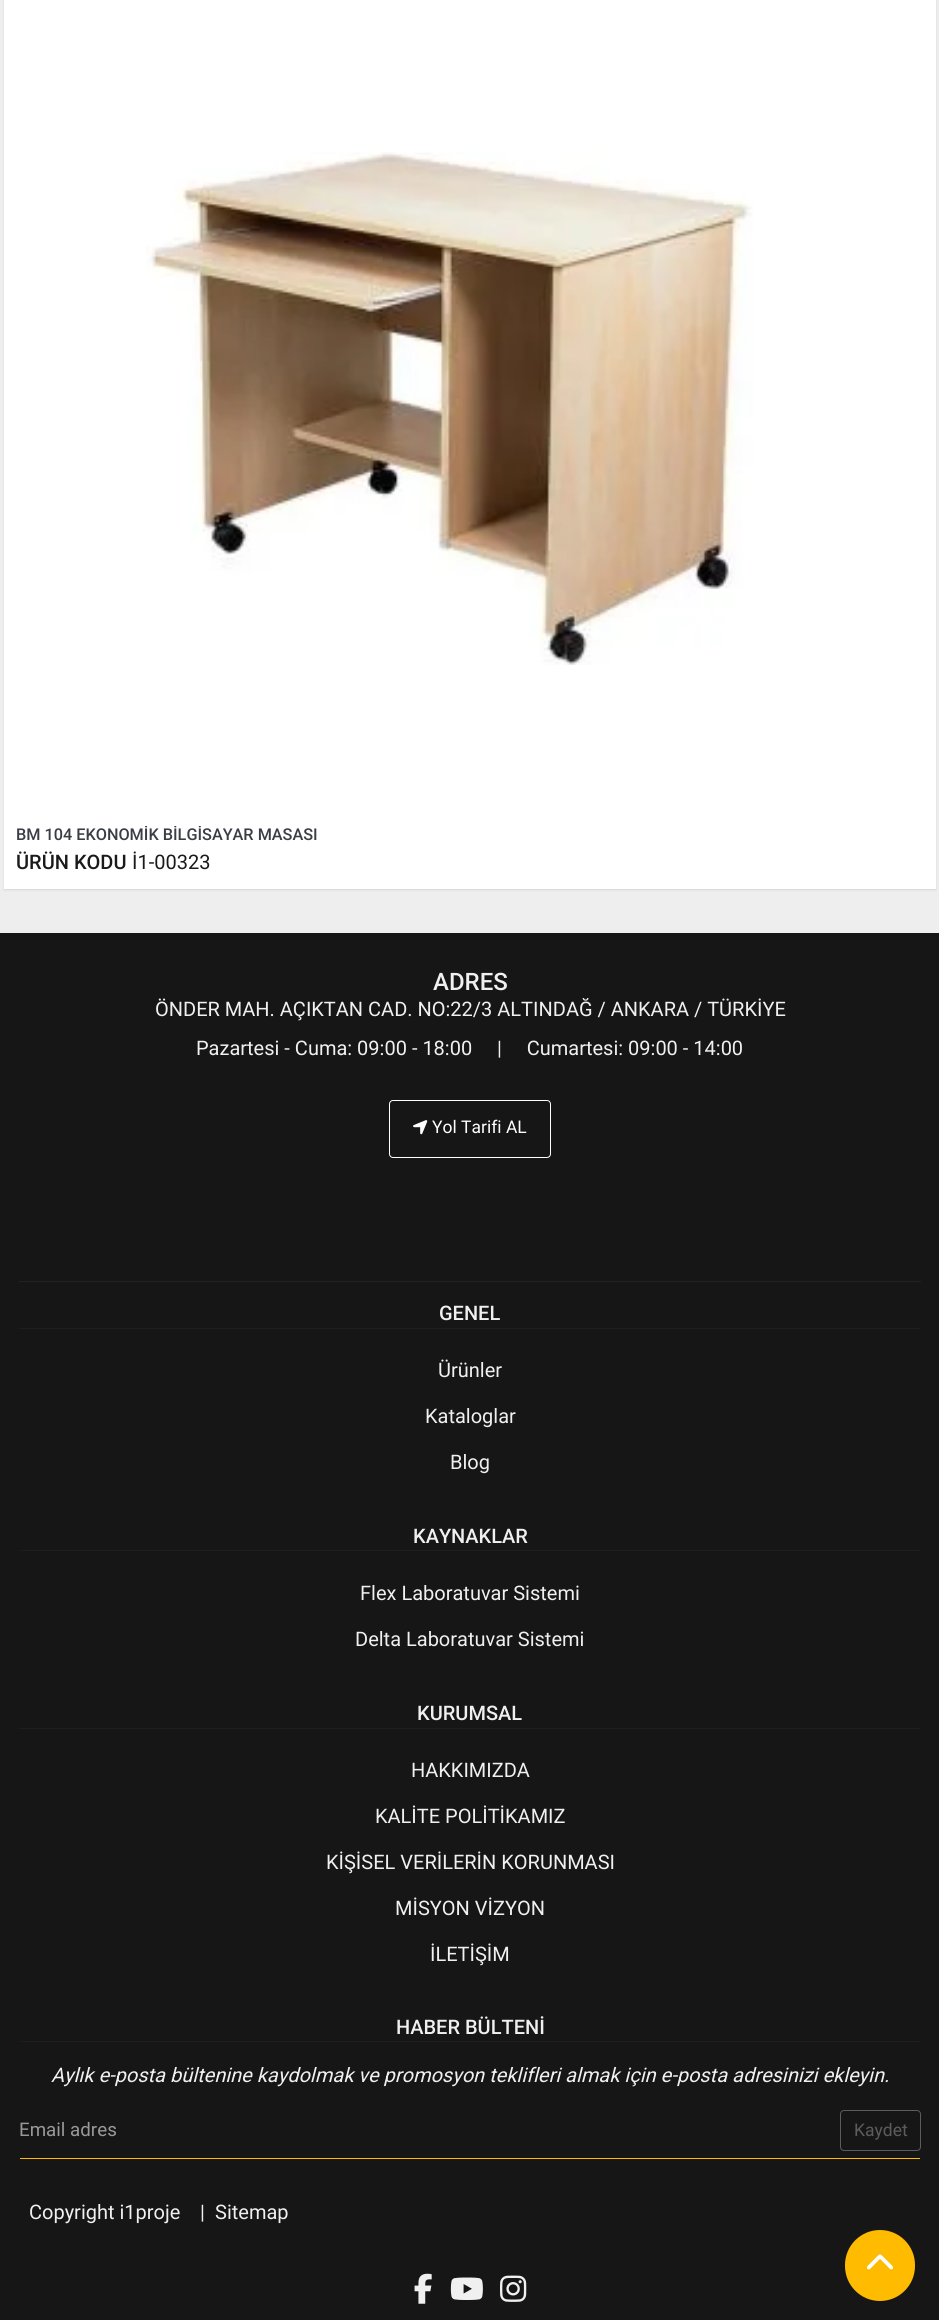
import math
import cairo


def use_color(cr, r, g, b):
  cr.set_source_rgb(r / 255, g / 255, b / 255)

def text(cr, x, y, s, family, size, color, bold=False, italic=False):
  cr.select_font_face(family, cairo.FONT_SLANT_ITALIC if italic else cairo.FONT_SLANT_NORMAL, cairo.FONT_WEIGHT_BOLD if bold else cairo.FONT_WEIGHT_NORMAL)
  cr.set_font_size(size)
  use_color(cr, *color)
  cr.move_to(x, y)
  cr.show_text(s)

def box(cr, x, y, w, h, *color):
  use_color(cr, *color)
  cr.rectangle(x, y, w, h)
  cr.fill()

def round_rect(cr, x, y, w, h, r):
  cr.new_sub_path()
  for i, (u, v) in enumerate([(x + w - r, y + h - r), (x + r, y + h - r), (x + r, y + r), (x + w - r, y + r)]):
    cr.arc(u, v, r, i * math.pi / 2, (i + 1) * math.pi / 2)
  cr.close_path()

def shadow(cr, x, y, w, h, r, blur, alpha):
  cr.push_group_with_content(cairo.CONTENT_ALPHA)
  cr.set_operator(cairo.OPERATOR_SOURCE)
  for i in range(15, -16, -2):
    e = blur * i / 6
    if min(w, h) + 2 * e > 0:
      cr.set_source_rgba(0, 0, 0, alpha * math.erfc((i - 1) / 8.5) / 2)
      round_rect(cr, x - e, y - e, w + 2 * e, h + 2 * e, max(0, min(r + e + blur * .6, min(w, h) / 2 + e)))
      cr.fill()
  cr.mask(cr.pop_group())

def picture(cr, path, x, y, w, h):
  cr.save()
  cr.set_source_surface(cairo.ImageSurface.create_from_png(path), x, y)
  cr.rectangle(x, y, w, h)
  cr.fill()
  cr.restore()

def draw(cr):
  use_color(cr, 238, 238, 238)
  cr.paint()
  use_color(cr, 0, 0, 0)
  shadow(cr, 4, -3, 932, 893, 0, 1, 0.1)
  box(cr, 4, 0, 932, 889, 255, 255, 255)
  picture(cr, "img_01.png", 146, 151, 607, 514)
  box(cr, 0, 933, 939, 1387, 22, 22, 22)
  box(cr, 19, 1281, 902, 1, 34, 34, 34)
  round_rect(cr, 389.5, 1100.5, 161, 57, 3.5)
  use_color(cr, 255, 255, 255)
  cr.set_line_width(1)
  cr.stroke()
  picture(cr, "img_02.png", 413, 1120, 15, 15)
  box(cr, 19, 1328, 902, 1, 30, 30, 30)
  box(cr, 19, 1550, 902, 1, 30, 30, 30)
  box(cr, 19, 1728, 902, 1, 30, 30, 30)
  box(cr, 19, 2041, 902, 1, 30, 30, 30)
  box(cr, 20, 2158, 900, 1, 255, 187, 0)
  round_rect(cr, 840.5, 2110.5, 80, 40, 3.5)
  use_color(cr, 92, 92, 92)
  cr.stroke()
  picture(cr, "img_03.png", 414, 2273, 18, 31)
  picture(cr, "img_04.png", 450, 2277, 33, 23)
  picture(cr, "img_05.png", 500, 2275, 27, 27)
  use_color(cr, 255, 187, 0)
  round_rect(cr, 845, 2230, 70, 71, 35)
  cr.fill()
  picture(cr, "img_06.png", 866, 2254, 28, 16)
  cr.save()
  cr.rectangle(16, 826, 908, 18)
  cr.clip()
  text(cr, 16, 840, "BM 104 EKONOMİK BİLGİSAYAR MASASI", "Roboto Medium", 16.25, (58, 61, 69))
  cr.restore()
  text(cr, 16, 869, "ÜRÜN KODU", "Roboto Medium", 20, (26, 26, 26))
  text(cr, 132, 869, "İ1-00323", "Roboto", 20, (26, 26, 26))
  text(cr, 433, 990, "ADRES", "Roboto Medium", 24, (240, 240, 240))
  text(cr, 155, 1016, "ÖNDER MAH. AÇIKTAN CAD. NO:22/3 ALTINDAĞ / ANKARA / TÜRKİYE", "Roboto", 20, (240, 240, 240))
  text(cr, 196, 1055, "Pazartesi - Cuma: 09:00 - 18:00     |     Cumartesi: 09:00 - 14:00", "Roboto", 20, (240, 240, 240))
  text(cr, 432, 1133, "Yol Tarifi AL", "Roboto", 17.5, (255, 255, 255))
  text(cr, 439, 1320, "GENEL", "Roboto Medium", 20, (240, 240, 240))
  text(cr, 438, 1377, "Ürünler", "Roboto", 20, (240, 240, 240))
  text(cr, 425, 1423, "Kataloglar", "Roboto", 20, (240, 240, 240))
  text(cr, 450, 1469, "Blog", "Roboto", 20, (240, 240, 240))
  text(cr, 413, 1543, "KAYNAKLAR", "Roboto Medium", 20, (240, 240, 240))
  text(cr, 360, 1600, "Flex Laboratuvar Sistemi", "Roboto", 20, (240, 240, 240))
  text(cr, 355, 1646, "Delta Laboratuvar Sistemi", "Roboto", 20, (240, 240, 240))
  text(cr, 417, 1720, "KURUMSAL", "Roboto Medium", 20, (240, 240, 240))
  text(cr, 411, 1777, "HAKKIMIZDA", "Roboto", 20, (240, 240, 240))
  text(cr, 375, 1823, "KALİTE POLİTİKAMIZ", "Roboto", 20, (240, 240, 240))
  text(cr, 326, 1869, "KİŞİSEL VERİLERİN KORUNMASI", "Roboto", 20, (240, 240, 240))
  text(cr, 395, 1915, "MİSYON VİZYON", "Roboto", 20, (240, 240, 240))
  text(cr, 430, 1961, "İLETİŞİM", "Roboto", 20, (240, 240, 240))
  text(cr, 396, 2034, "HABER BÜLTENİ", "Roboto Medium", 20, (240, 240, 240))
  text(cr, 51, 2082, "Aylık e-posta bültenine kaydolmak ve promosyon teklifleri almak için e-posta adresinizi ekleyin.", "Roboto", 20, (240, 240, 240), italic=True)
  text(cr, 19, 2136, "Email adres", "Roboto", 18.75, (153, 153, 153))
  text(cr, 854, 2136, "Kaydet", "Roboto", 17.5, (92, 92, 92))
  text(cr, 29, 2219, "Copyright i1proje", "Roboto", 20, (240, 240, 240))
  text(cr, 200, 2219, "|", "Roboto", 20, (240, 240, 240))
  text(cr, 215, 2219, "Sitemap", "Roboto", 20, (240, 240, 240))


surface = cairo.ImageSurface(cairo.FORMAT_RGB24, 939, 2320)
cr = cairo.Context(surface)
options = cairo.FontOptions()
options.set_hint_metrics(cairo.HINT_METRICS_OFF)
options.set_hint_style(cairo.HINT_STYLE_NONE)
cr.set_font_options(options)
cr.set_miter_limit(4)
draw(cr)
surface.write_to_png("out.png")
